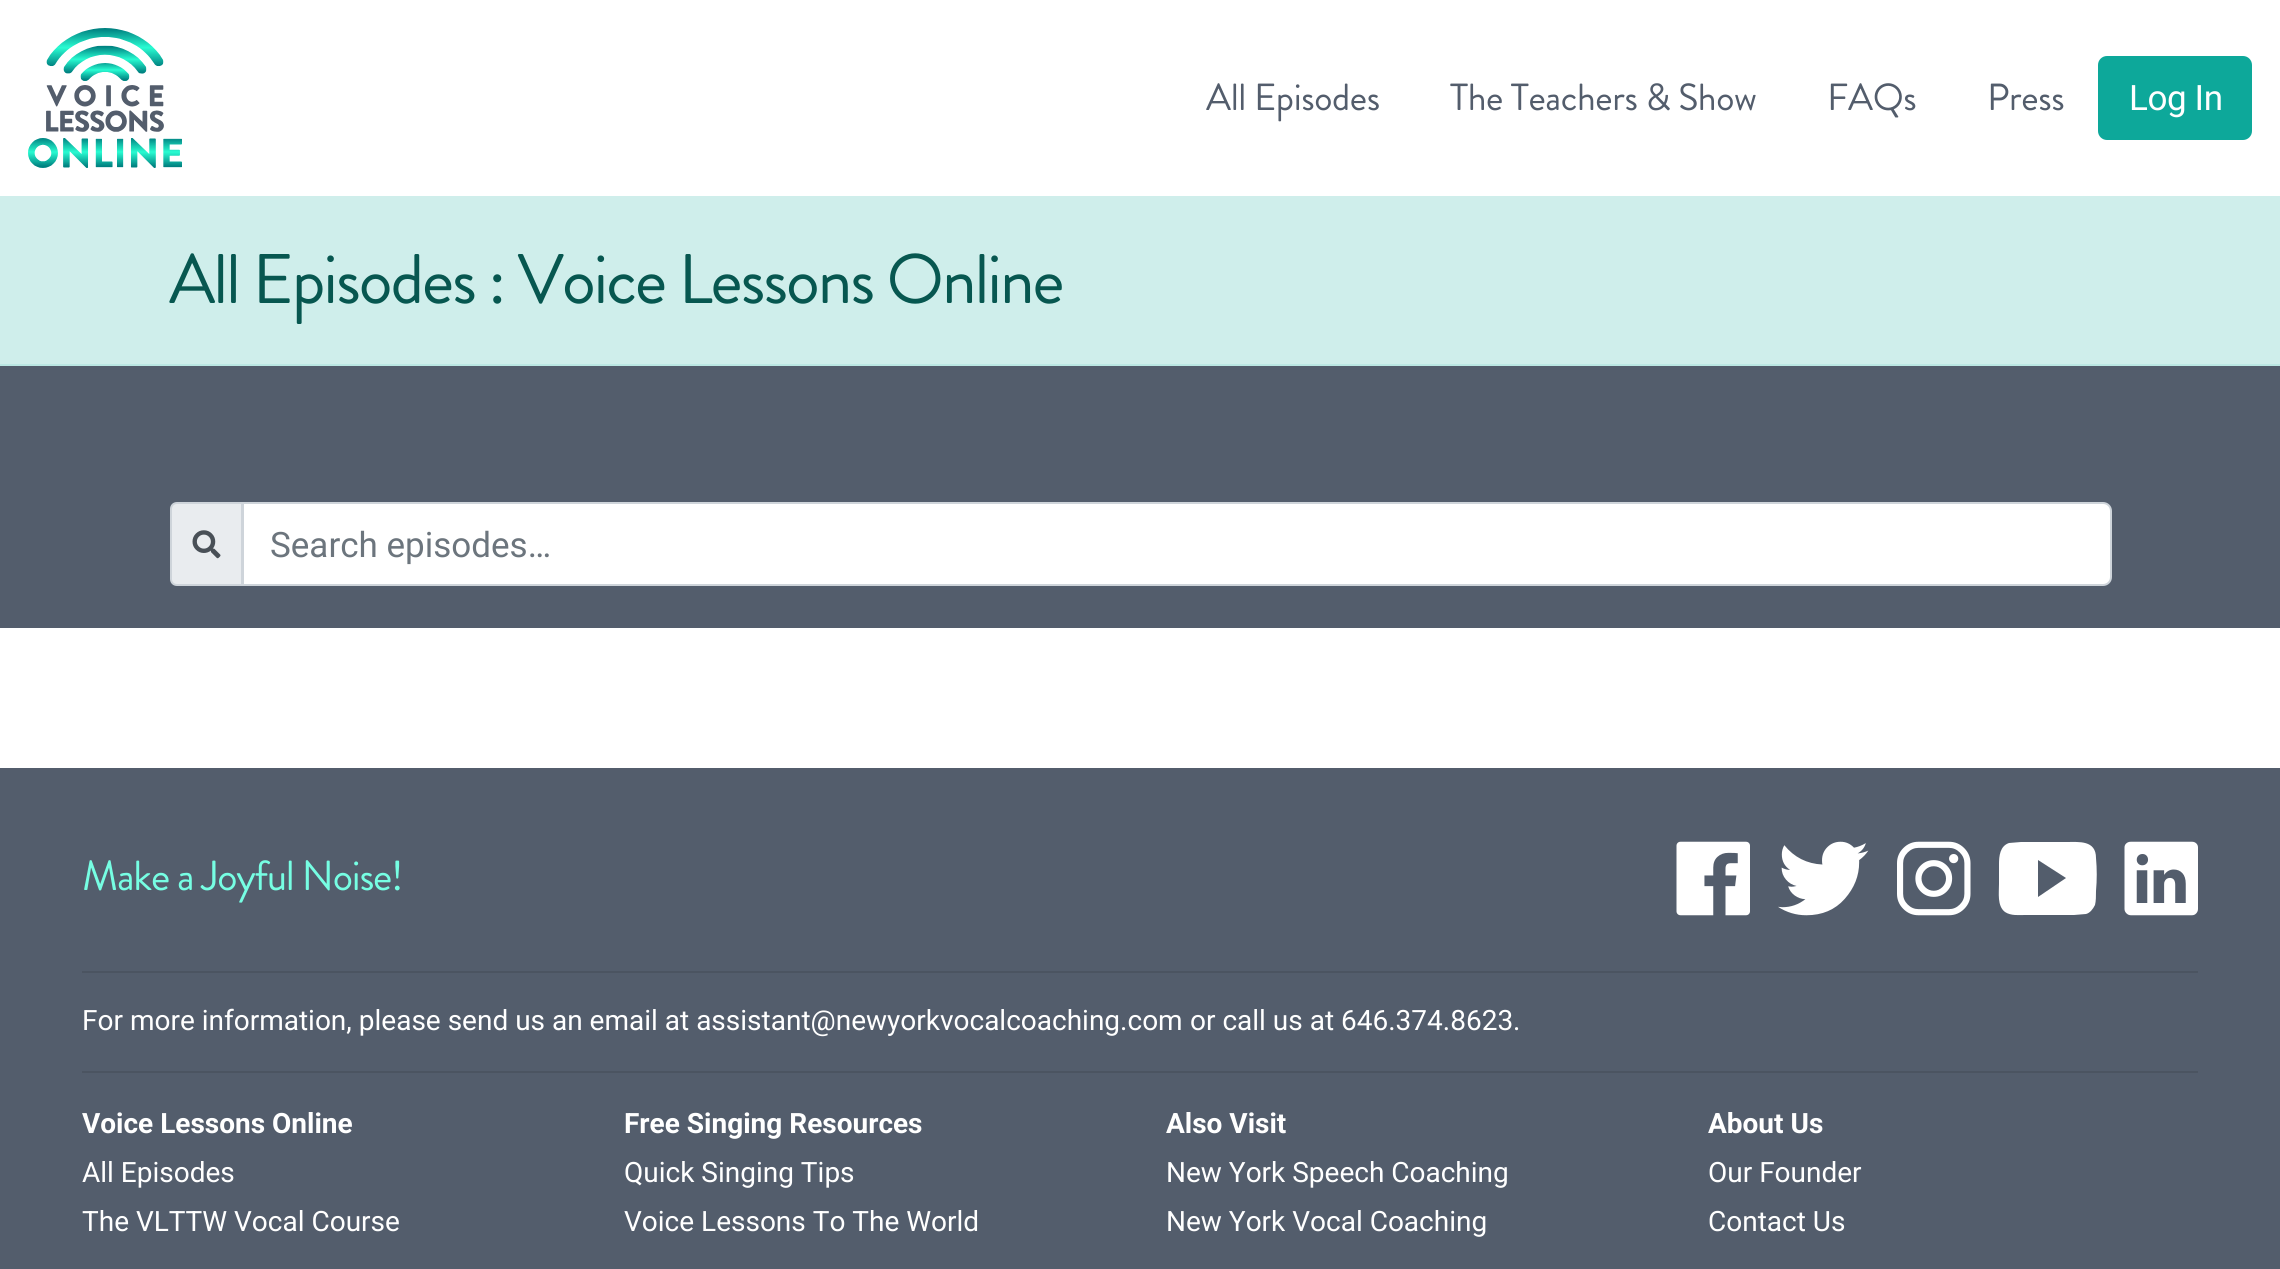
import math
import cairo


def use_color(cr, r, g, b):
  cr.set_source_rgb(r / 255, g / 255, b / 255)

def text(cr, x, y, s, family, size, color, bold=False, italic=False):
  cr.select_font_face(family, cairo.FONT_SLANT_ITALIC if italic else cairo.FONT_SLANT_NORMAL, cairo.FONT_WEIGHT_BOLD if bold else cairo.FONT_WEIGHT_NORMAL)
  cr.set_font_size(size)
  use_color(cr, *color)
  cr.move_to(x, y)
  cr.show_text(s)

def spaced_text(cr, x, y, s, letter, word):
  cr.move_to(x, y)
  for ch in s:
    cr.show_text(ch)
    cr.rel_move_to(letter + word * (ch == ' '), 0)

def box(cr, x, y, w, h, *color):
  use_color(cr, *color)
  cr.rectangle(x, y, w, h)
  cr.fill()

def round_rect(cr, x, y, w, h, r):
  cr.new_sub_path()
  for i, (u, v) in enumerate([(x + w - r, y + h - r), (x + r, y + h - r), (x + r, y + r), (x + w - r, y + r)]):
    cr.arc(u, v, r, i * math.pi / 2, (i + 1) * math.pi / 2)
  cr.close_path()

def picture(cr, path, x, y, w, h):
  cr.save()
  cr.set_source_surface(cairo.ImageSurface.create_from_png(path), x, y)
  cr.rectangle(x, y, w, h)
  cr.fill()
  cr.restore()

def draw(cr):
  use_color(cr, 255, 255, 255)
  cr.paint()
  picture(cr, "img_01.png", 28, 28, 154, 140)
  use_color(cr, 13, 168, 154)
  round_rect(cr, 2099, 57, 152, 82, 8)
  cr.fill_preserve()
  cr.stroke()
  box(cr, 0, 366, 2280, 262, 83, 93, 108)
  box(cr, 0, 196, 2280, 168, 207, 238, 235)
  box(cr, 0, 364, 2280, 2, 187, 231, 227)
  use_color(cr, 233, 236, 239)
  cr.new_path()
  cr.move_to(177, 503)
  cr.line_to(242, 503)
  cr.line_to(242, 585)
  cr.line_to(177, 585)
  cr.curve_to(173.5, 585, 171, 582.5, 171, 579)
  cr.line_to(171, 509)
  cr.curve_to(171, 505.5, 173.5, 503, 177, 503)
  cr.close_path()
  cr.fill_preserve()
  use_color(cr, 206, 212, 218)
  cr.stroke()
  picture(cr, "img_02.png", 192, 530, 29, 29)
  use_color(cr, 255, 255, 255)
  cr.new_path()
  cr.move_to(243, 503)
  cr.line_to(2103, 503)
  cr.curve_to(2107.5, 503, 2111, 506.5, 2111, 511)
  cr.line_to(2111, 577)
  cr.curve_to(2111, 581.5, 2107.5, 585, 2103, 585)
  cr.line_to(243, 585)
  cr.close_path()
  cr.fill_preserve()
  use_color(cr, 206, 212, 218)
  cr.stroke()
  box(cr, 0, 768, 2280, 501, 83, 93, 108)
  picture(cr, "img_03.png", 1676, 841, 74, 75)
  picture(cr, "img_04.png", 1778, 841, 91, 75)
  picture(cr, "img_05.png", 1897, 841, 74, 75)
  use_color(cr, 255, 255, 255)
  cr.new_path()
  cr.move_to(2096, 858)
  cr.curve_to(2097, 869, 2097, 880, 2096, 891)
  cr.curve_to(2096, 896, 2096, 901, 2095, 905)
  cr.curve_to(2093, 909, 2090, 913, 2086, 914)
  cr.line_to(2074, 915)
  cr.line_to(2048, 915)
  cr.line_to(2025, 915)
  cr.curve_to(2019, 915, 2011, 916, 2005, 912)
  cr.curve_to(1997, 906, 1999, 893, 1999, 884)
  cr.line_to(1999, 864)
  cr.curve_to(1999, 856, 2000, 846, 2009, 843)
  cr.line_to(2021, 842)
  cr.line_to(2067, 842)
  cr.curve_to(2079, 842, 2096, 840, 2096, 858)
  cr.close_path()
  cr.move_to(2038, 897)
  cr.line_to(2066, 878)
  cr.line_to(2038, 860)
  cr.close_path()
  cr.fill()
  picture(cr, "img_06.png", 2124, 841, 74, 75)
  box(cr, 82, 971, 2116, 2, 75, 84, 97)
  box(cr, 82, 1071, 2116, 2, 75, 84, 97)
  cr.select_font_face("Brandon Grotesque")
  cr.set_font_size(37.75)
  use_color(cr, 83, 93, 108)
  spaced_text(cr, 1206, 110, "All Episodes", -0.4, 0)
  spaced_text(cr, 1450, 110, "The Teachers & Show", -0.4, 0)
  spaced_text(cr, 1827, 110, "FAQs", -0.4, 0)
  spaced_text(cr, 1987, 110, "Press", -0.4, 0)
  cr.select_font_face("Roboto")
  cr.set_font_size(35)
  use_color(cr, 255, 255, 255)
  spaced_text(cr, 2129, 110, "Log In", -0.4, 0)
  cr.select_font_face("Brandon Grotesque")
  cr.set_font_size(70)
  use_color(cr, 7, 87, 80)
  spaced_text(cr, 169, 303, "All Episodes : Voice Lessons Online", -2.1, 0)
  text(cr, 270, 557, "Search episodes…", "Roboto", 35, (108, 117, 125))
  cr.select_font_face("Brandon Grotesque")
  cr.set_font_size(42)
  use_color(cr, 118, 254, 227)
  spaced_text(cr, 82, 890, "Make a Joyful Noise!", -1.25, 0)
  text(cr, 82, 1030, "For more information, please send us an email at assistant@newyorkvocalcoaching.com", "Roboto", 28, (255, 255, 255))
  text(cr, 1190, 1030, "or call us at 646.374.8623", "Roboto", 28, (255, 255, 255))
  text(cr, 1513, 1030, ".", "Roboto", 28, (255, 255, 255))
  text(cr, 82, 1133, "Voice Lessons Online", "Roboto", 28, (255, 255, 255), bold=True)
  text(cr, 82, 1182, "All Episodes", "Roboto", 28, (255, 255, 255))
  text(cr, 82, 1231, "The VLTTW Vocal Course", "Roboto", 28, (255, 255, 255))
  text(cr, 624, 1133, "Free Singing Resources", "Roboto", 28, (255, 255, 255), bold=True)
  text(cr, 624, 1182, "Quick Singing Tips", "Roboto", 28, (255, 255, 255))
  text(cr, 624, 1231, "Voice Lessons To The World", "Roboto", 28, (255, 255, 255))
  text(cr, 1166, 1133, "Also Visit", "Roboto", 28, (255, 255, 255), bold=True)
  text(cr, 1166, 1182, "New York Speech Coaching", "Roboto", 28, (255, 255, 255))
  text(cr, 1166, 1231, "New York Vocal Coaching", "Roboto", 28, (255, 255, 255))
  text(cr, 1708, 1133, "About Us", "Roboto", 28, (255, 255, 255), bold=True)
  text(cr, 1708, 1182, "Our Founder", "Roboto", 28, (255, 255, 255))
  text(cr, 1708, 1231, "Contact Us", "Roboto", 28, (255, 255, 255))


surface = cairo.ImageSurface(cairo.FORMAT_RGB24, 2280, 1269)
cr = cairo.Context(surface)
options = cairo.FontOptions()
options.set_hint_metrics(cairo.HINT_METRICS_OFF)
options.set_hint_style(cairo.HINT_STYLE_NONE)
cr.set_font_options(options)
cr.set_miter_limit(4)
draw(cr)
surface.write_to_png("out.png")
